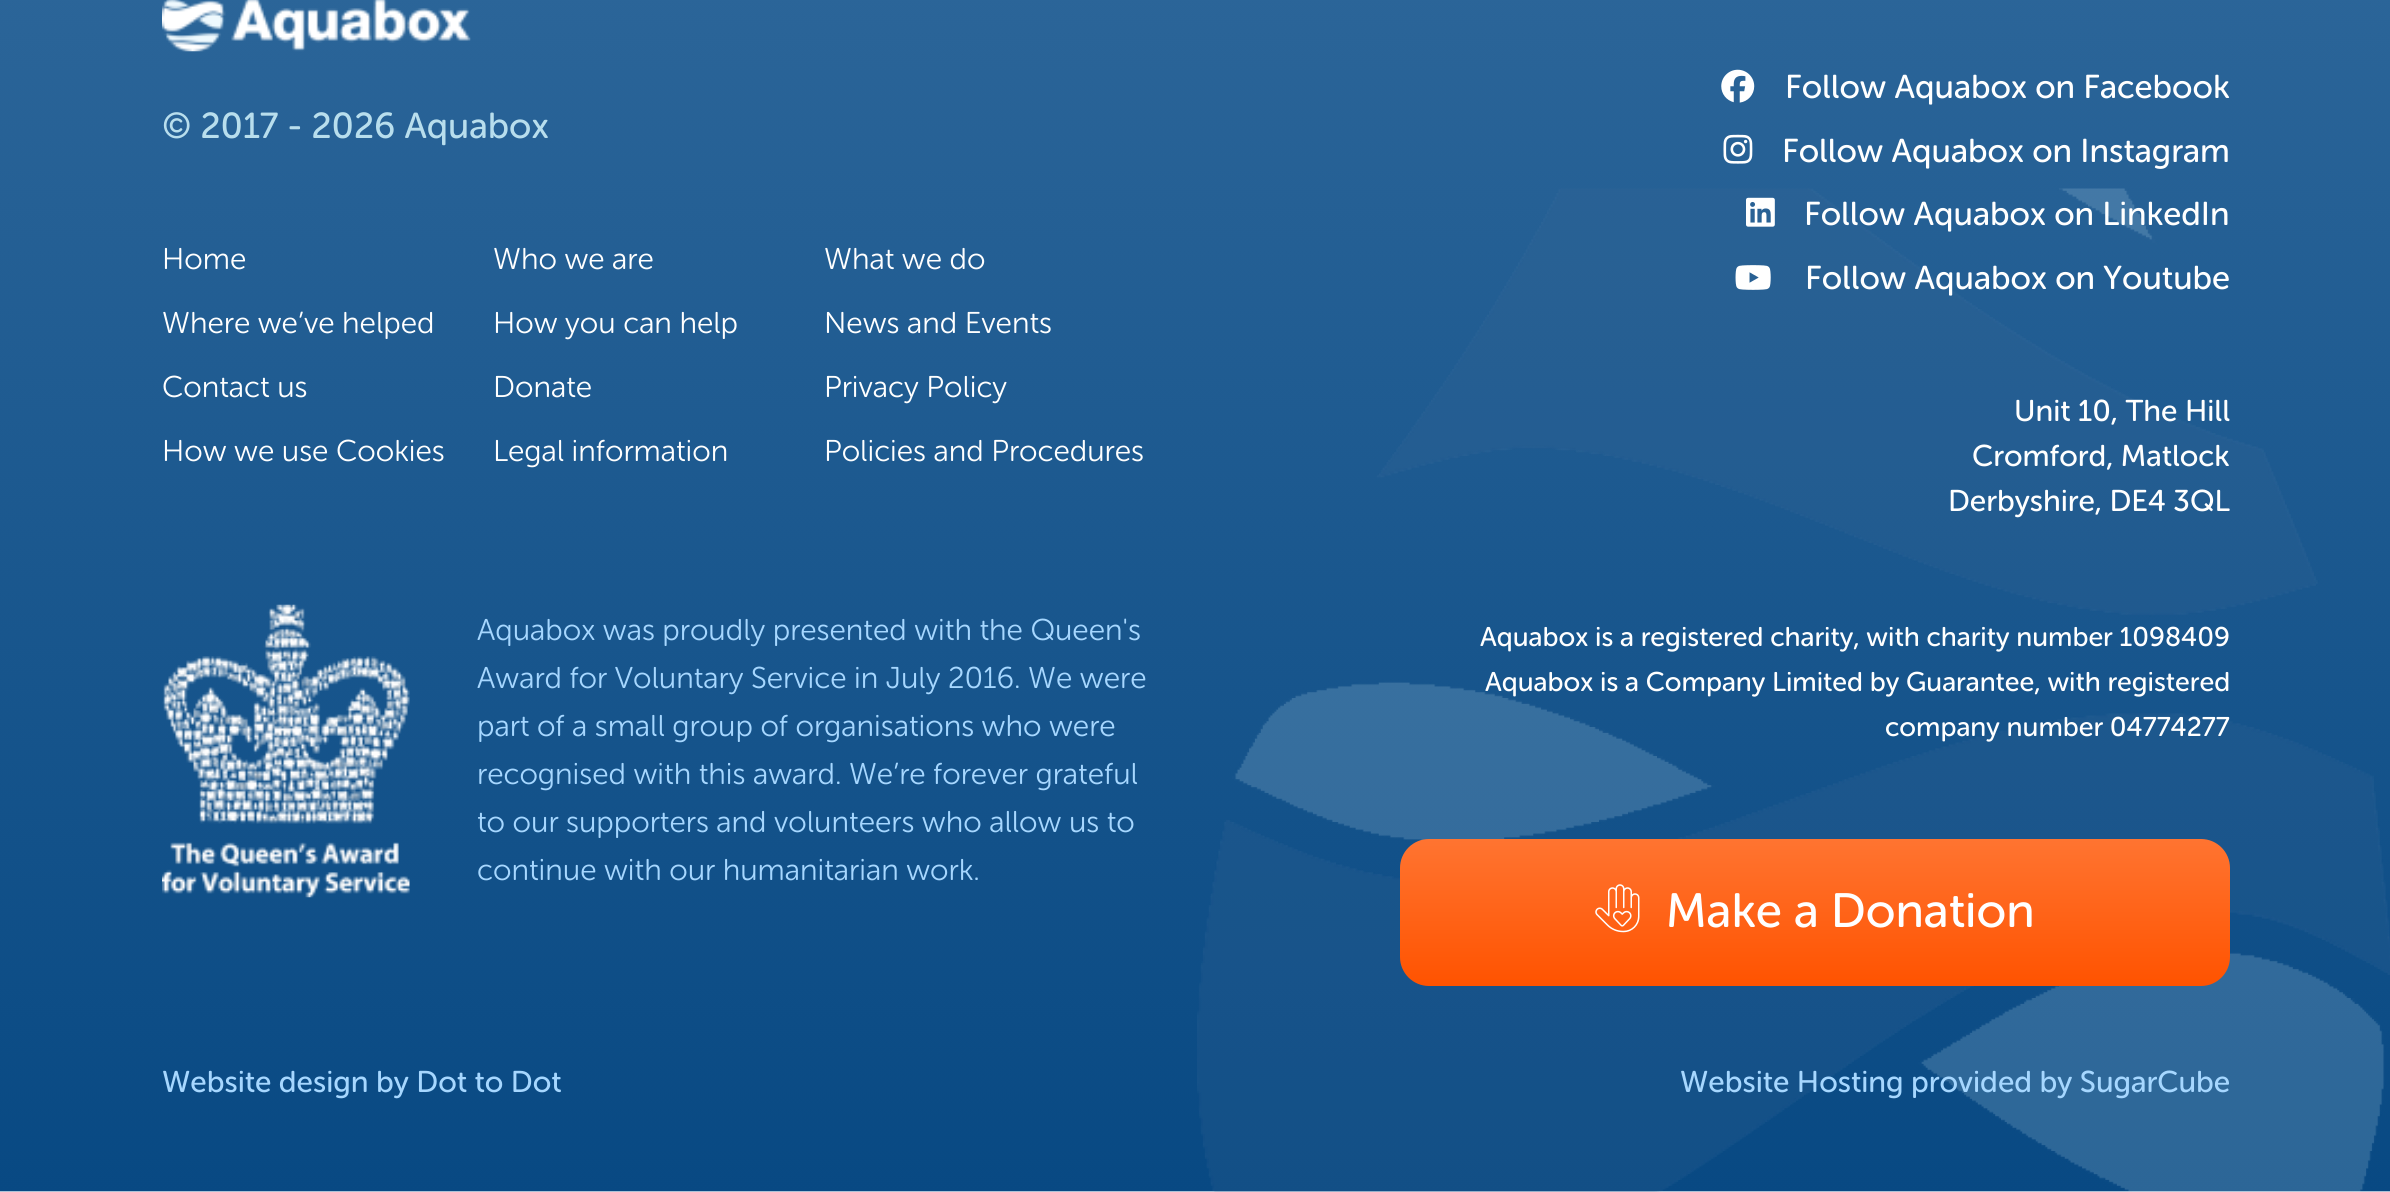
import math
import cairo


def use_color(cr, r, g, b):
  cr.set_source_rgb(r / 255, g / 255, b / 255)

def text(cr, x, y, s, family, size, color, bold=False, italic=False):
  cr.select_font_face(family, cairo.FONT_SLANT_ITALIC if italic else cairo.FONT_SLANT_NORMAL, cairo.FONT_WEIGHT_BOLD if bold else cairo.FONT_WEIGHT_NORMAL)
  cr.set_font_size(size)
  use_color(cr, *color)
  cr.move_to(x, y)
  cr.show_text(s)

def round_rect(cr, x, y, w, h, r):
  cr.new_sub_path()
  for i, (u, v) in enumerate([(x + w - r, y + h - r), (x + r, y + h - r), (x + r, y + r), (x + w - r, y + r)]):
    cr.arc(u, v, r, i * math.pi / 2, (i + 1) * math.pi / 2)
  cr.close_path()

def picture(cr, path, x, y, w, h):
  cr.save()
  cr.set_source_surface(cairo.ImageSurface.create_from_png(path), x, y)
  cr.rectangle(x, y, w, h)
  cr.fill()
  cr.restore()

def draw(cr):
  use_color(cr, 255, 255, 255)
  cr.paint()
  picture(cr, "img_01.png", 0, 0, 2390, 1192)
  picture(cr, "img_02.png", 162, 0, 309, 52)
  picture(cr, "img_03.png", 162, 604, 248, 294)
  picture(cr, "img_04.png", 1721, 69, 34, 34)
  picture(cr, "img_05.png", 1723, 134, 30, 30)
  picture(cr, "img_06.png", 1746, 197, 29, 30)
  picture(cr, "img_07.png", 1735, 265, 36, 25)
  gradient = cairo.LinearGradient(1815, 839, 1815, 986)
  gradient.add_color_stop_rgba(0, 1, 0.455, 0.192, 1)
  gradient.add_color_stop_rgba(1, 1, 0.325, 0, 1)
  cr.set_source(gradient)
  round_rect(cr, 1400, 839, 830, 147, 29)
  cr.fill()
  picture(cr, "img_08.png", 1595, 884, 45, 49)
  text(cr, 162, 138, "© 2017 - 2026 Aquabox", "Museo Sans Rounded", 36, (184, 222, 237))
  text(cr, 162, 269, "Home", "Museo Sans Rounded Light", 30, (255, 255, 255))
  text(cr, 493, 269, "Who we are", "Museo Sans Rounded Light", 30, (255, 255, 255))
  text(cr, 824, 269, "What we do", "Museo Sans Rounded Light", 30, (255, 255, 255))
  text(cr, 162, 333, "Where we’ve helped", "Museo Sans Rounded Light", 30, (255, 255, 255))
  text(cr, 493, 333, "How you can help", "Museo Sans Rounded Light", 30, (255, 255, 255))
  text(cr, 824, 333, "News and Events", "Museo Sans Rounded Light", 30, (255, 255, 255))
  text(cr, 162, 397, "Contact us", "Museo Sans Rounded Light", 30, (255, 255, 255))
  text(cr, 493, 397, "Donate", "Museo Sans Rounded Light", 30, (255, 255, 255))
  text(cr, 824, 397, "Privacy Policy", "Museo Sans Rounded Light", 30, (255, 255, 255))
  text(cr, 162, 461, "How we use Cookies", "Museo Sans Rounded Light", 30, (255, 255, 255))
  text(cr, 493, 461, "Legal information", "Museo Sans Rounded Light", 30, (255, 255, 255))
  text(cr, 824, 461, "Policies and Procedures", "Museo Sans Rounded Light", 30, (255, 255, 255))
  text(cr, 477, 640, "Aquabox was proudly presented with the Queen's", "Museo Sans Rounded Light", 30, (166, 215, 255))
  text(cr, 477, 688, "Award for Voluntary Service in July 2016. We were", "Museo Sans Rounded Light", 30, (166, 215, 255))
  text(cr, 477, 736, "part of a small group of organisations who were", "Museo Sans Rounded Light", 30, (166, 215, 255))
  text(cr, 477, 784, "recognised with this award. We’re forever grateful", "Museo Sans Rounded Light", 30, (166, 215, 255))
  text(cr, 477, 832, "to our supporters and volunteers who allow us to", "Museo Sans Rounded Light", 30, (166, 215, 255))
  text(cr, 477, 880, "continue with our humanitarian work.", "Museo Sans Rounded Light", 30, (166, 215, 255))
  text(cr, 1785, 98, "Follow Aquabox on Facebook", "Museo Sans Rounded", 33, (255, 255, 255))
  text(cr, 1782, 162, "Follow Aquabox on Instagram", "Museo Sans Rounded", 33, (255, 255, 255))
  text(cr, 1804, 225, "Follow Aquabox on LinkedIn", "Museo Sans Rounded", 33, (255, 255, 255))
  text(cr, 1805, 289, "Follow Aquabox on Youtube", "Museo Sans Rounded", 33, (255, 255, 255))
  text(cr, 2014, 421, "Unit 10, The Hill", "Museo Sans Rounded", 30, (255, 255, 255))
  text(cr, 1972, 466, "Cromford, Matlock", "Museo Sans Rounded", 30, (255, 255, 255))
  text(cr, 1948, 511, "Derbyshire, DE4 3QL", "Museo Sans Rounded", 30, (255, 255, 255))
  text(cr, 1480, 646, "Aquabox is a registered charity, with charity number 1098409", "Museo Sans Rounded", 27, (255, 255, 255))
  text(cr, 1485, 691, "Aquabox is a Company Limited by Guarantee, with registered", "Museo Sans Rounded", 27, (255, 255, 255))
  text(cr, 1885, 736, "company number 04774277", "Museo Sans Rounded", 27, (255, 255, 255))
  text(cr, 1666, 927, "Make a Donation", "Museo Sans Rounded", 48, (255, 255, 255))
  text(cr, 162, 1092, "Website design by Dot to Dot", "Museo Sans Rounded", 30, (166, 215, 255))
  text(cr, 1680, 1092, "Website Hosting provided by SugarCube", "Museo Sans Rounded", 30, (166, 215, 255))


surface = cairo.ImageSurface(cairo.FORMAT_RGB24, 2390, 1192)
cr = cairo.Context(surface)
options = cairo.FontOptions()
options.set_hint_metrics(cairo.HINT_METRICS_OFF)
options.set_hint_style(cairo.HINT_STYLE_NONE)
cr.set_font_options(options)
cr.set_miter_limit(4)
draw(cr)
surface.write_to_png("out.png")
